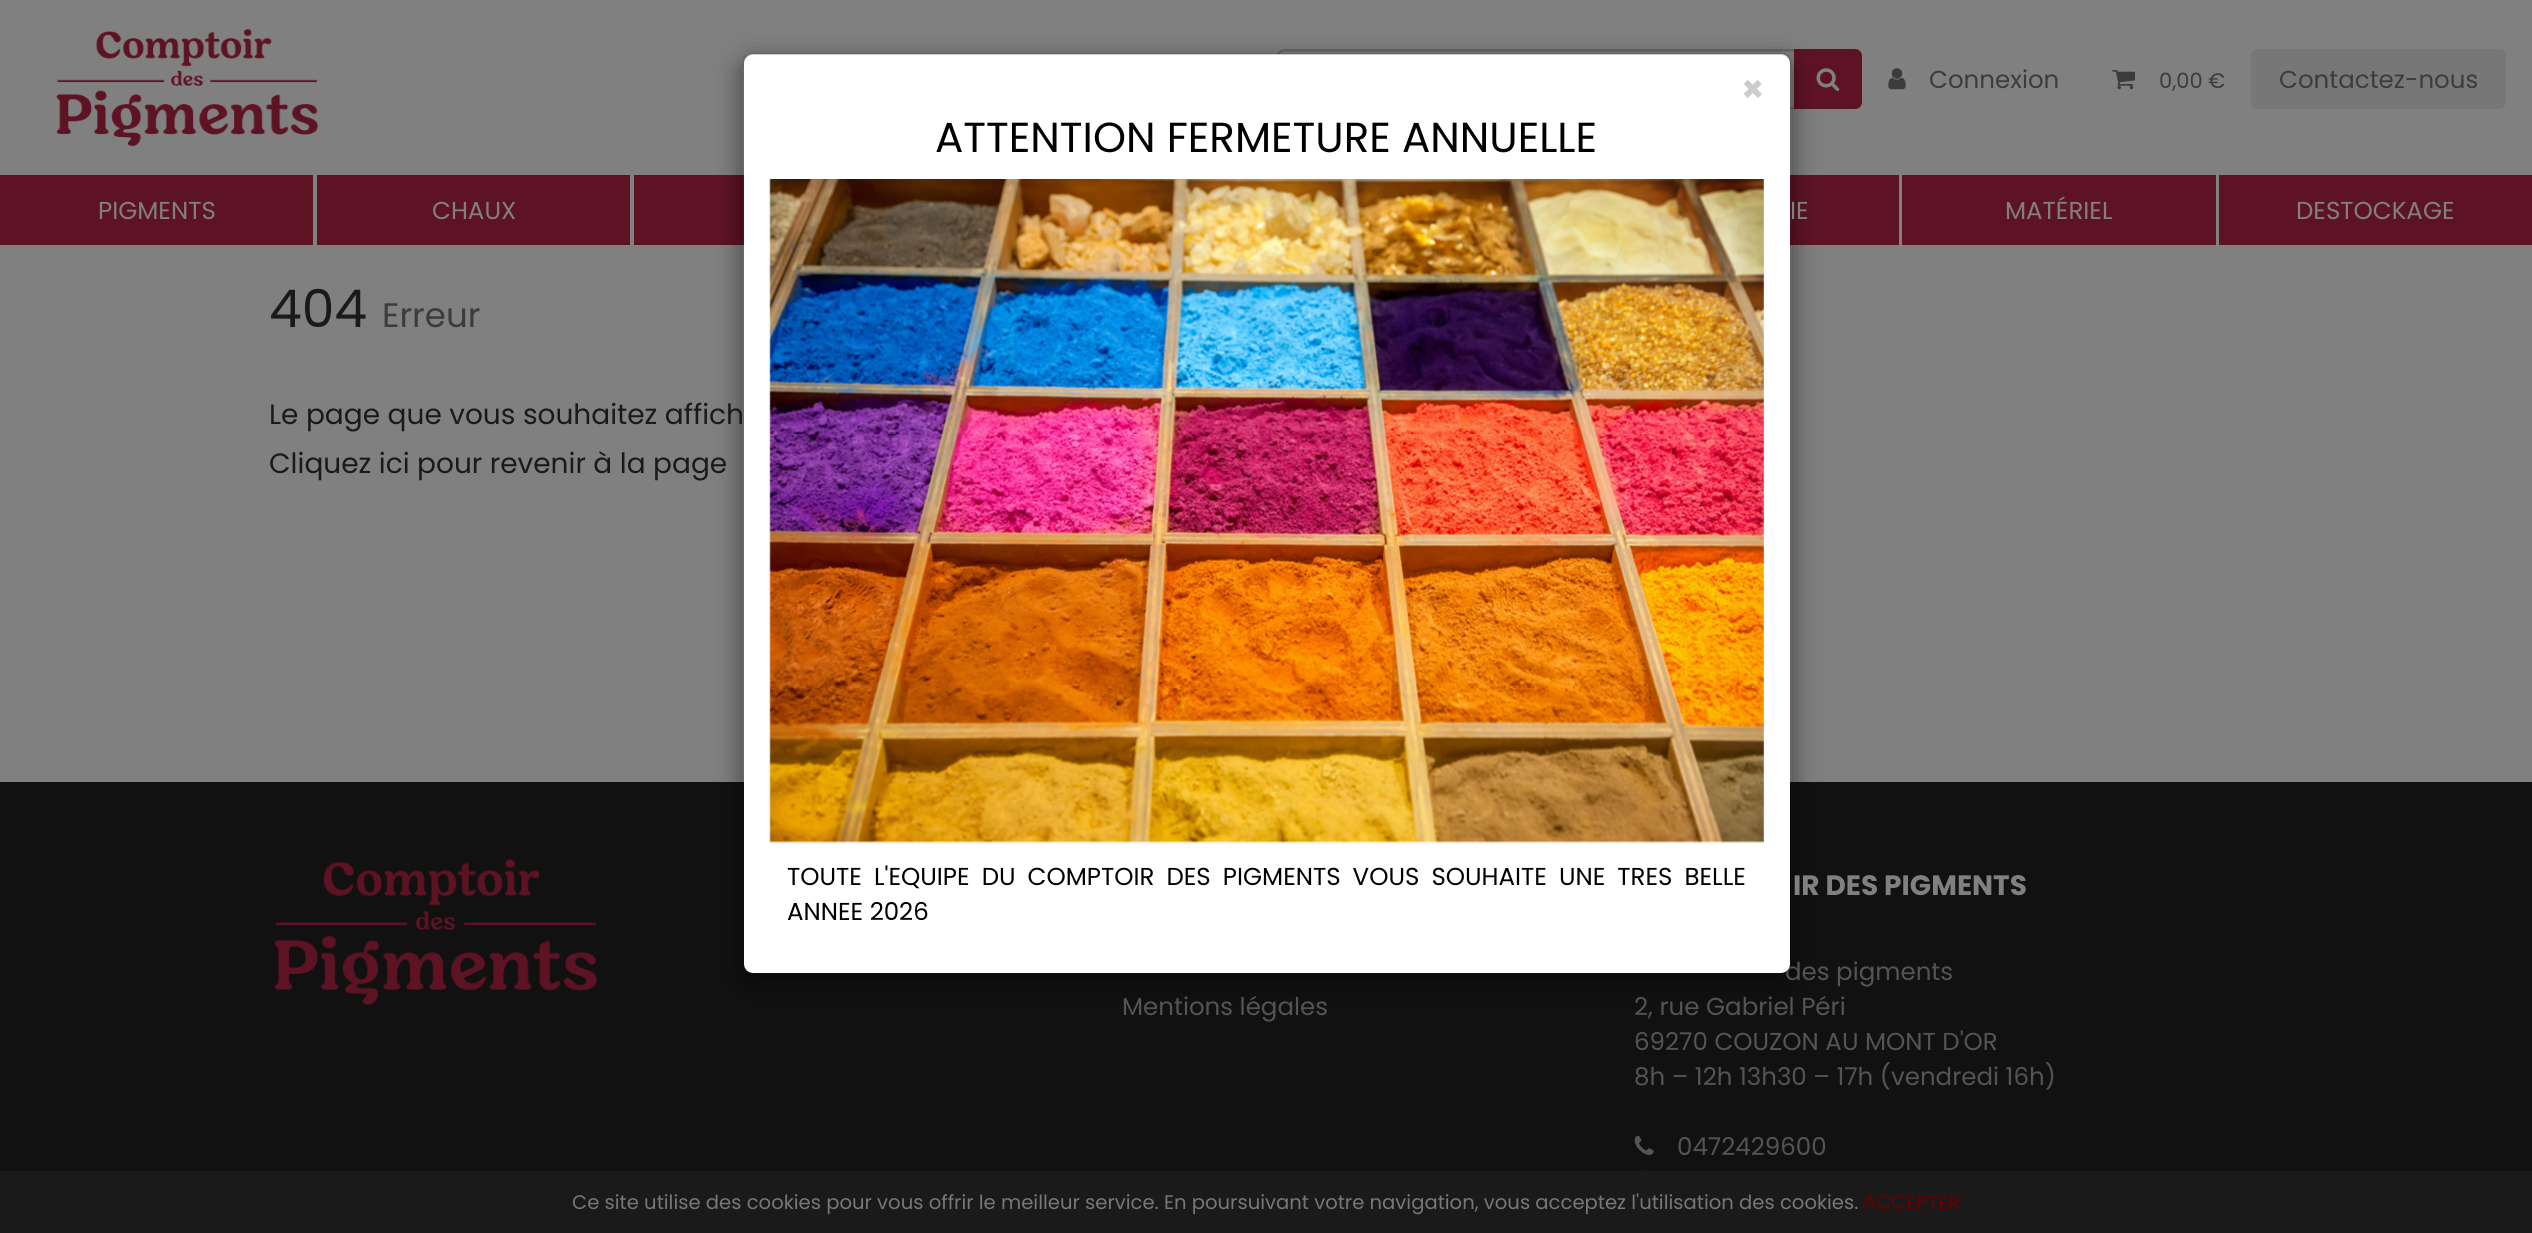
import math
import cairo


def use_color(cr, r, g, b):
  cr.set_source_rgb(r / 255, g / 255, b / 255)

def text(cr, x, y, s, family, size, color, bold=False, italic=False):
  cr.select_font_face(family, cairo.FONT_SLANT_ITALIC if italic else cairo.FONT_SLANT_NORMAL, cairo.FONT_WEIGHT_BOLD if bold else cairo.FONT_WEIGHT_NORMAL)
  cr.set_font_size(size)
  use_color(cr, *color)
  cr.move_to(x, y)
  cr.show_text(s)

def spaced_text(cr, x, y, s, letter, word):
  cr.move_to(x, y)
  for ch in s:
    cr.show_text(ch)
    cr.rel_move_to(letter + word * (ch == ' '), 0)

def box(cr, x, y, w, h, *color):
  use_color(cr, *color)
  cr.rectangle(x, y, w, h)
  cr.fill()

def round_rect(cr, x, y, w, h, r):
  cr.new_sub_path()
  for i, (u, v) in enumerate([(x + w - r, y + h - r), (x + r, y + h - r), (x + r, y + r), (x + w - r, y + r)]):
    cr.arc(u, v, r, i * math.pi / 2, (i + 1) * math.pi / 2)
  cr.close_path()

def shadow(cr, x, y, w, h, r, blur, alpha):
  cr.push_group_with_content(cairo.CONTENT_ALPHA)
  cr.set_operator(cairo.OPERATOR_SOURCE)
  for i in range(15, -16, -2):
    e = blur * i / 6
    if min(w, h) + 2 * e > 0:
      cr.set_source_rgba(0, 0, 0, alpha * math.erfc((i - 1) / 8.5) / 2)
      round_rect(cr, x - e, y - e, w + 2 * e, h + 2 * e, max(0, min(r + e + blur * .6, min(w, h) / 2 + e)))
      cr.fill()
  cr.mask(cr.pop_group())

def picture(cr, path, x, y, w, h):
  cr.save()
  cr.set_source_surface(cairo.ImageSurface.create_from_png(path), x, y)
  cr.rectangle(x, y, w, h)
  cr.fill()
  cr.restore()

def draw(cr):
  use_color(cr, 128, 128, 128)
  cr.paint()
  picture(cr, "img_01.png", 56, 29, 263, 118)
  use_color(cr, 118, 118, 118)
  cr.new_path()
  cr.move_to(1284, 52)
  cr.line_to(1794, 52)
  cr.line_to(1794, 51)
  cr.line_to(1285, 51)
  cr.curve_to(1280, 51, 1278, 56, 1278, 60)
  cr.curve_to(1278, 56, 1281, 52, 1284, 52)
  cr.close_path()
  cr.fill()
  cr.new_path()
  cr.move_to(1285, 50)
  cr.line_to(1795, 50)
  cr.line_to(1795, 108)
  cr.line_to(1285, 108)
  cr.curve_to(1280.5, 108, 1277, 104.5, 1277, 100)
  cr.line_to(1277, 58)
  cr.curve_to(1277, 53.5, 1280.5, 50, 1285, 50)
  cr.close_path()
  use_color(cr, 102, 102, 102)
  cr.stroke()
  use_color(cr, 94, 19, 37)
  cr.new_path()
  cr.move_to(1795, 50)
  cr.line_to(1855, 50)
  cr.curve_to(1858.5, 50, 1861, 52.5, 1861, 56)
  cr.line_to(1861, 102)
  cr.curve_to(1861, 105.5, 1858.5, 108, 1855, 108)
  cr.line_to(1795, 108)
  cr.close_path()
  cr.fill_preserve()
  cr.stroke()
  picture(cr, "img_02.png", 1816, 68, 24, 23)
  picture(cr, "img_03.png", 1888, 68, 18, 22)
  picture(cr, "img_04.png", 2112, 70, 23, 20)
  use_color(cr, 119, 119, 119)
  round_rect(cr, 2251, 49, 255, 60, 7)
  cr.fill()
  box(cr, 0, 175, 313, 70, 94, 19, 37)
  box(cr, 317, 175, 313, 70, 94, 19, 37)
  box(cr, 634, 175, 110, 70, 94, 19, 37)
  box(cr, 1790, 175, 109, 70, 94, 19, 37)
  box(cr, 1902, 175, 314, 70, 94, 19, 37)
  box(cr, 2219, 175, 313, 70, 94, 19, 37)
  box(cr, 0, 782, 2532, 389, 17, 17, 17)
  cr.save()
  cr.set_fill_rule(cairo.FILL_RULE_EVEN_ODD)
  cr.new_path()
  cr.move_to(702, 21)
  cr.line_to(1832, 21)
  cr.line_to(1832, 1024)
  cr.line_to(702, 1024)
  cr.close_path()
  cr.move_to(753, 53)
  cr.line_to(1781, 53)
  cr.curve_to(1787, 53, 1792, 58, 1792, 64)
  cr.line_to(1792, 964)
  cr.curve_to(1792, 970, 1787, 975, 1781, 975)
  cr.line_to(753, 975)
  cr.curve_to(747, 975, 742, 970, 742, 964)
  cr.line_to(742, 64)
  cr.curve_to(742, 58, 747, 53, 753, 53)
  cr.close_path()
  cr.clip()
  use_color(cr, 0, 0, 0)
  shadow(cr, 742, 61, 1050, 923, 11, 13, 0.5)
  cr.restore()
  picture(cr, "img_06.png", 274, 858, 324, 147)
  picture(cr, "img_07.png", 1634, 1135, 20, 20)
  picture(cr, "img_08.png", 1643, 1170, 4, 1)
  box(cr, 0, 1171, 2532, 62, 26, 26, 26)
  text(cr, 1929, 88, "Connexion", "Poppins", 24.5, (60, 60, 60))
  text(cr, 2159, 88, "0,00 €", "Poppins", 21, (60, 60, 60))
  text(cr, 2279, 88, "Contactez-nous", "Poppins", 24.5, (60, 60, 60))
  text(cr, 98, 219, "PIGMENTS", "Poppins", 24.5, (128, 128, 128))
  text(cr, 432, 219, "CHAUX", "Poppins", 24.5, (128, 128, 128))
  text(cr, 1790, 219, "IE", "Poppins", 24.5, (128, 128, 128))
  text(cr, 2005, 219, "MATÉRIEL", "Poppins", 24.5, (128, 128, 128))
  text(cr, 2296, 219, "DESTOCKAGE", "Poppins", 24.5, (128, 128, 128))
  text(cr, 269, 327, "404", "Poppins", 52, (26, 26, 26))
  text(cr, 382, 327, "Erreur", "Poppins", 34, (60, 60, 60))
  text(cr, 269, 424, "Le page que vous souhaitez affich", "Poppins", 28, (26, 26, 26))
  text(cr, 269, 473, "Cliquez ici pour revenir à la page", "Poppins", 28, (26, 26, 26))
  text(cr, 1122, 1015, "Mentions légales", "Poppins", 24.5, (84, 84, 84))
  text(cr, 1793, 895, "IR DES PIGMENTS", "Poppins", 28, (128, 128, 128), bold=True)
  text(cr, 1785, 980, "des pigments", "Poppins", 24.5, (84, 84, 84))
  use_color(cr, 255, 255, 255)
  round_rect(cr, 744, 54, 1046, 919, 9)
  cr.fill()
  round_rect(cr, 743, 54, 1048, 920, 10)
  cr.set_source_rgba(0, 0, 0, 0.2)
  cr.stroke()
  text(cr, 1741, 102, "×", "Poppins", 37, (204, 204, 204), bold=True)
  text(cr, 787, 920, "ANNEE 2026", "Poppins", 24.5, (0, 0, 0))
  spaced_text(cr, 787, 885, "TOUTE L'EQUIPE DU COMPTOIR DES PIGMENTS VOUS SOUHAITE UNE TRES BELLE", 0, 5.5)
  picture(cr, "img_05.png", 769, 179, 995, 664)
  text(cr, 935, 152, "ATTENTION FERMETURE ANNUELLE", "Poppins", 42, (0, 0, 0))
  text(cr, 1634, 1015, "2, rue Gabriel Péri", "Poppins", 24.5, (84, 84, 84))
  text(cr, 1634, 1050, "69270 COUZON AU MONT D'OR", "Poppins", 24.5, (84, 84, 84))
  text(cr, 1634, 1085, "8h – 12h 13h30 – 17h (vendredi 16h)", "Poppins", 24.5, (84, 84, 84))
  text(cr, 1677, 1155, "0472429600", "Poppins", 24.5, (84, 84, 84))
  text(cr, 572, 1209, "Ce site utilise des cookies pour vous offrir le meilleur service. En poursuivant votre navigation, vous acceptez l'utilisation des cookies.", "Poppins", 19.6, (119, 119, 119))
  text(cr, 1863, 1209, "ACCEPTER", "Poppins", 19.6, (102, 0, 0))


surface = cairo.ImageSurface(cairo.FORMAT_RGB24, 2532, 1233)
cr = cairo.Context(surface)
options = cairo.FontOptions()
options.set_hint_metrics(cairo.HINT_METRICS_OFF)
options.set_hint_style(cairo.HINT_STYLE_NONE)
cr.set_font_options(options)
cr.set_miter_limit(4)
draw(cr)
surface.write_to_png("out.png")
